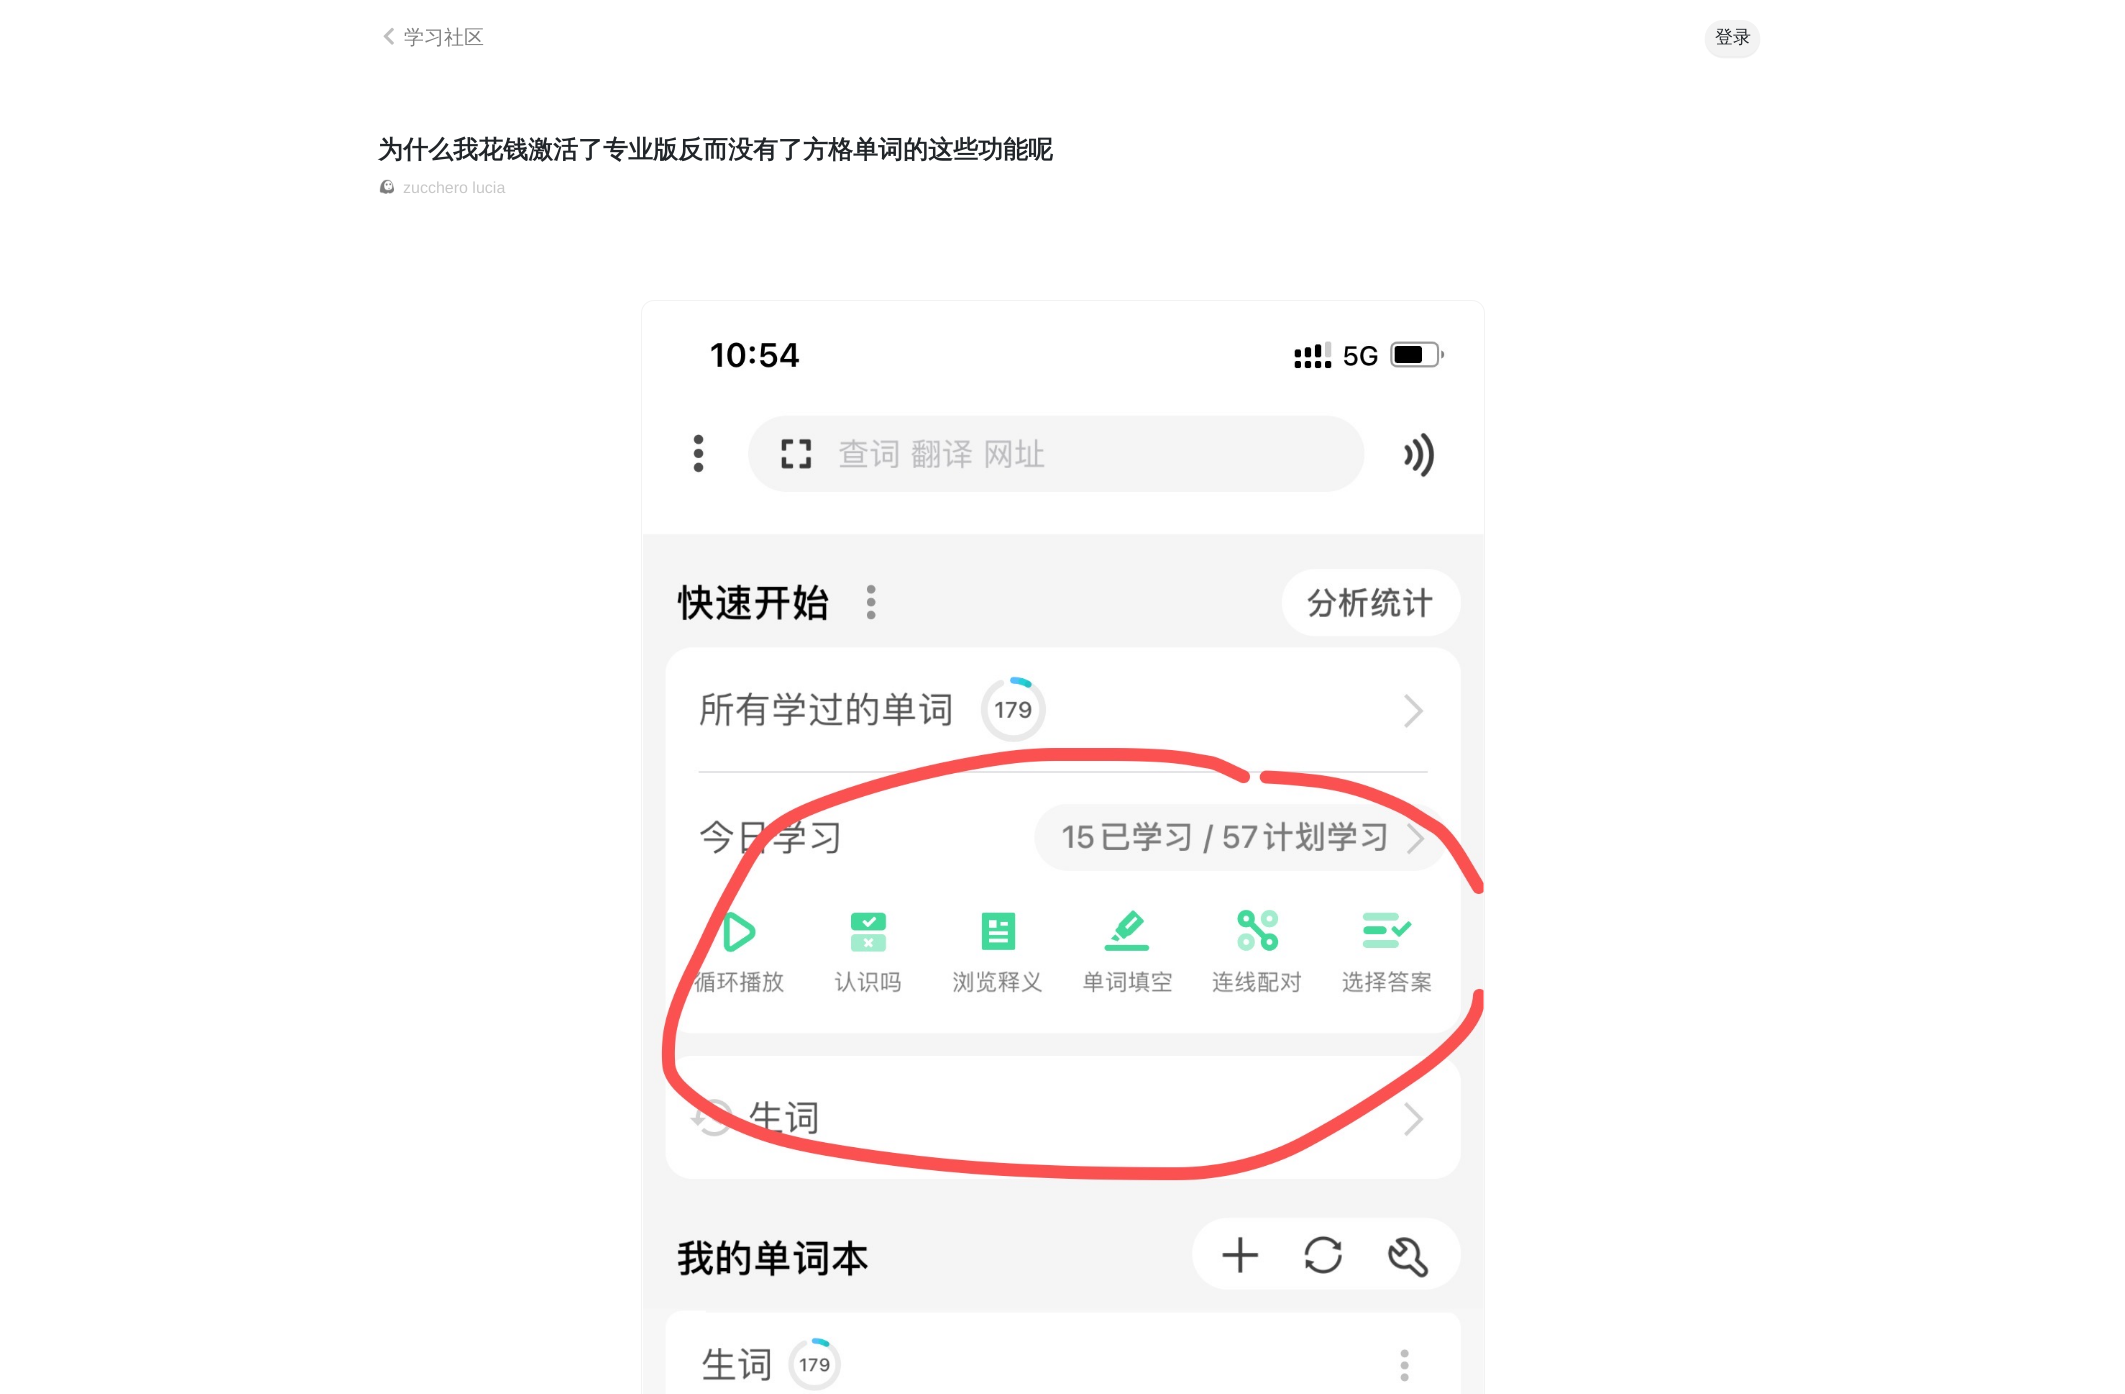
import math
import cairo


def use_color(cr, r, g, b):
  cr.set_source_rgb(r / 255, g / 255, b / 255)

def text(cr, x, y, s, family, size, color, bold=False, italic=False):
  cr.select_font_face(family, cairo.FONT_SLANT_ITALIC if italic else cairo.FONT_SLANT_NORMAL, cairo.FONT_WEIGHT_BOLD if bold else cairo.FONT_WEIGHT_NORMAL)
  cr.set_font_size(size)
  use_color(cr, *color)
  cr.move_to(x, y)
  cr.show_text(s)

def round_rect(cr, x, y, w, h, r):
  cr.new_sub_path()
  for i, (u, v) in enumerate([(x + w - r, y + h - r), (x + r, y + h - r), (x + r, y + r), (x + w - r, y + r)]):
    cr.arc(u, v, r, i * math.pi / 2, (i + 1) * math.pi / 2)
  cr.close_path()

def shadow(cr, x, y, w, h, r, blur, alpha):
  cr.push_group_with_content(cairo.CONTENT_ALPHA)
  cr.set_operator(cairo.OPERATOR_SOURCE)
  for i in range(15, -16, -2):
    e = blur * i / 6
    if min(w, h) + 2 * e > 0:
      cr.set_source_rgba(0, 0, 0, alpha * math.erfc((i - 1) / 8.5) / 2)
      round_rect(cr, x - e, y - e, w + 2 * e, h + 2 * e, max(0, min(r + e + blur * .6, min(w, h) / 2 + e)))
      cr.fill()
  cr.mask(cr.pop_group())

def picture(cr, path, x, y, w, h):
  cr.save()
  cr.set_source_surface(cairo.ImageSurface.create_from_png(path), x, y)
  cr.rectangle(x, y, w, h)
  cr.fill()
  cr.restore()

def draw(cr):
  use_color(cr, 255, 255, 255)
  cr.paint()
  picture(cr, "img_01.png", 383, 27, 11, 18)
  use_color(cr, 0, 0, 0)
  shadow(cr, 1705, 21, 55, 37, 18.5, 0.5, 0.07)
  use_color(cr, 243, 243, 243)
  round_rect(cr, 1705, 20, 55, 36, 18)
  cr.fill()
  picture(cr, "img_02.png", 378, 178, 18, 18)
  round_rect(cr, 641.5, 300.5, 843, 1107, 12.5)
  use_color(cr, 242, 242, 242)
  cr.set_line_width(1)
  cr.stroke()
  picture(cr, "img_03.png", 643, 341, 841, 1053)
  text(cr, 404, 44, "学习社区", "WenQuanYi Zen Hei Medium", 20, (128, 128, 128))
  text(cr, 1715, 43, "登录", "WenQuanYi Zen Hei Medium", 18, (33, 37, 41))
  text(cr, 378, 158, "为什么我花钱激活了专业版反而没有了方格单词的这些功能呢", "WenQuanYi Zen Hei", 25, (33, 37, 41), bold=True)
  text(cr, 403, 193, "zucchero lucia", "Liberation Sans", 16, (199, 199, 199))


surface = cairo.ImageSurface(cairo.FORMAT_RGB24, 2125, 1394)
cr = cairo.Context(surface)
options = cairo.FontOptions()
options.set_hint_metrics(cairo.HINT_METRICS_OFF)
options.set_hint_style(cairo.HINT_STYLE_NONE)
cr.set_font_options(options)
cr.set_miter_limit(4)
draw(cr)
surface.write_to_png("out.png")
